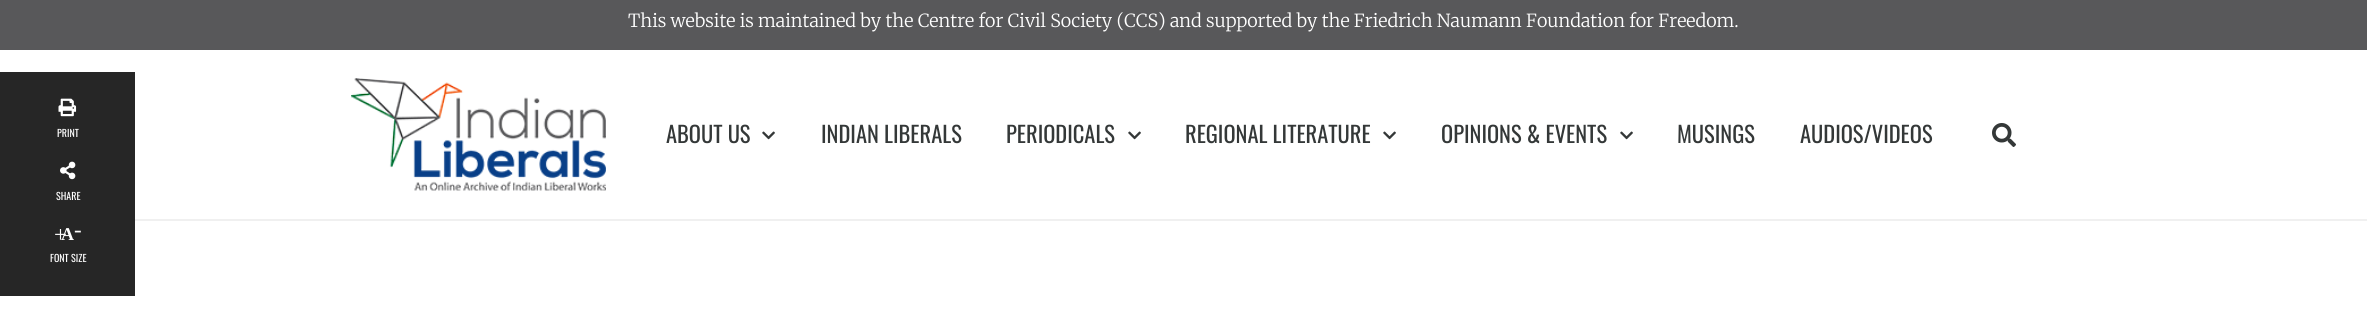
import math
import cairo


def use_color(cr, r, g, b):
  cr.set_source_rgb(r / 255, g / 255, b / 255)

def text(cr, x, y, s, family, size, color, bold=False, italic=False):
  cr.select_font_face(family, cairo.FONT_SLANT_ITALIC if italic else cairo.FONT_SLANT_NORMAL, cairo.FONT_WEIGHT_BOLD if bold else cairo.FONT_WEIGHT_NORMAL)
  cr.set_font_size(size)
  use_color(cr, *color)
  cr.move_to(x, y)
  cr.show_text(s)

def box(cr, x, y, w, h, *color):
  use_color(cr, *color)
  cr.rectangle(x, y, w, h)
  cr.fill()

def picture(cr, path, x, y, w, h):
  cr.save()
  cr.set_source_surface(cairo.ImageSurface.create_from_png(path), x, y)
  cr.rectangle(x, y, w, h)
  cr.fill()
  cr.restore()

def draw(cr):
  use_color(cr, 88, 88, 90)
  cr.paint()
  box(cr, 0, 50, 2367, 281, 255, 255, 255)
  box(cr, 0, 72, 135, 224, 38, 38, 38)
  picture(cr, "img_01.png", 58, 98, 19, 19)
  picture(cr, "img_02.png", 60, 161, 16, 19)
  box(cr, 135, 219, 2232, 2, 240, 240, 240)
  picture(cr, "img_03.png", 351, 78, 255, 113)
  picture(cr, "img_04.png", 762, 131, 13, 9)
  picture(cr, "img_04.png", 1128, 131, 13, 9)
  picture(cr, "img_04.png", 1383, 131, 13, 9)
  picture(cr, "img_04.png", 1620, 131, 13, 9)
  picture(cr, "img_05.png", 1992, 123, 24, 24)
  text(cr, 628, 27, "This website is maintained by the Centre for Civil Society (CCS) and supported by the Friedrich Naumann Foundation for Freedom.", "Merriweather Light", 18, (255, 255, 255))
  text(cr, 57, 137, "PRINT", "Oswald", 10, (255, 255, 255))
  text(cr, 56, 200, "SHARE", "Oswald", 10, (255, 255, 255))
  text(cr, 61, 240, "A", "Liberation Serif", 18, (255, 255, 255), bold=True)
  text(cr, 54, 242, "+", "Liberation Serif", 23, (255, 255, 255))
  text(cr, 74, 237, "-", "Liberation Serif", 23, (255, 255, 255))
  text(cr, 50, 262, "FONT SIZE", "Oswald", 10, (255, 255, 255))
  text(cr, 666, 143, "ABOUT US", "Oswald", 22.5, (52, 56, 56))
  text(cr, 821, 143, "INDIAN LIBERALS", "Oswald", 22.5, (52, 56, 56))
  text(cr, 1006, 143, "PERIODICALS", "Oswald", 22.5, (52, 56, 56))
  text(cr, 1185, 143, "REGIONAL LITERATURE", "Oswald", 22.5, (52, 56, 56))
  text(cr, 1441, 143, "OPINIONS & EVENTS", "Oswald", 22.5, (52, 56, 56))
  text(cr, 1677, 143, "MUSINGS", "Oswald", 22.5, (52, 56, 56))
  text(cr, 1800, 143, "AUDIOS/VIDEOS", "Oswald", 22.5, (52, 56, 56))


surface = cairo.ImageSurface(cairo.FORMAT_RGB24, 2367, 331)
cr = cairo.Context(surface)
options = cairo.FontOptions()
options.set_hint_metrics(cairo.HINT_METRICS_OFF)
options.set_hint_style(cairo.HINT_STYLE_NONE)
cr.set_font_options(options)
cr.set_miter_limit(4)
draw(cr)
surface.write_to_png("out.png")
